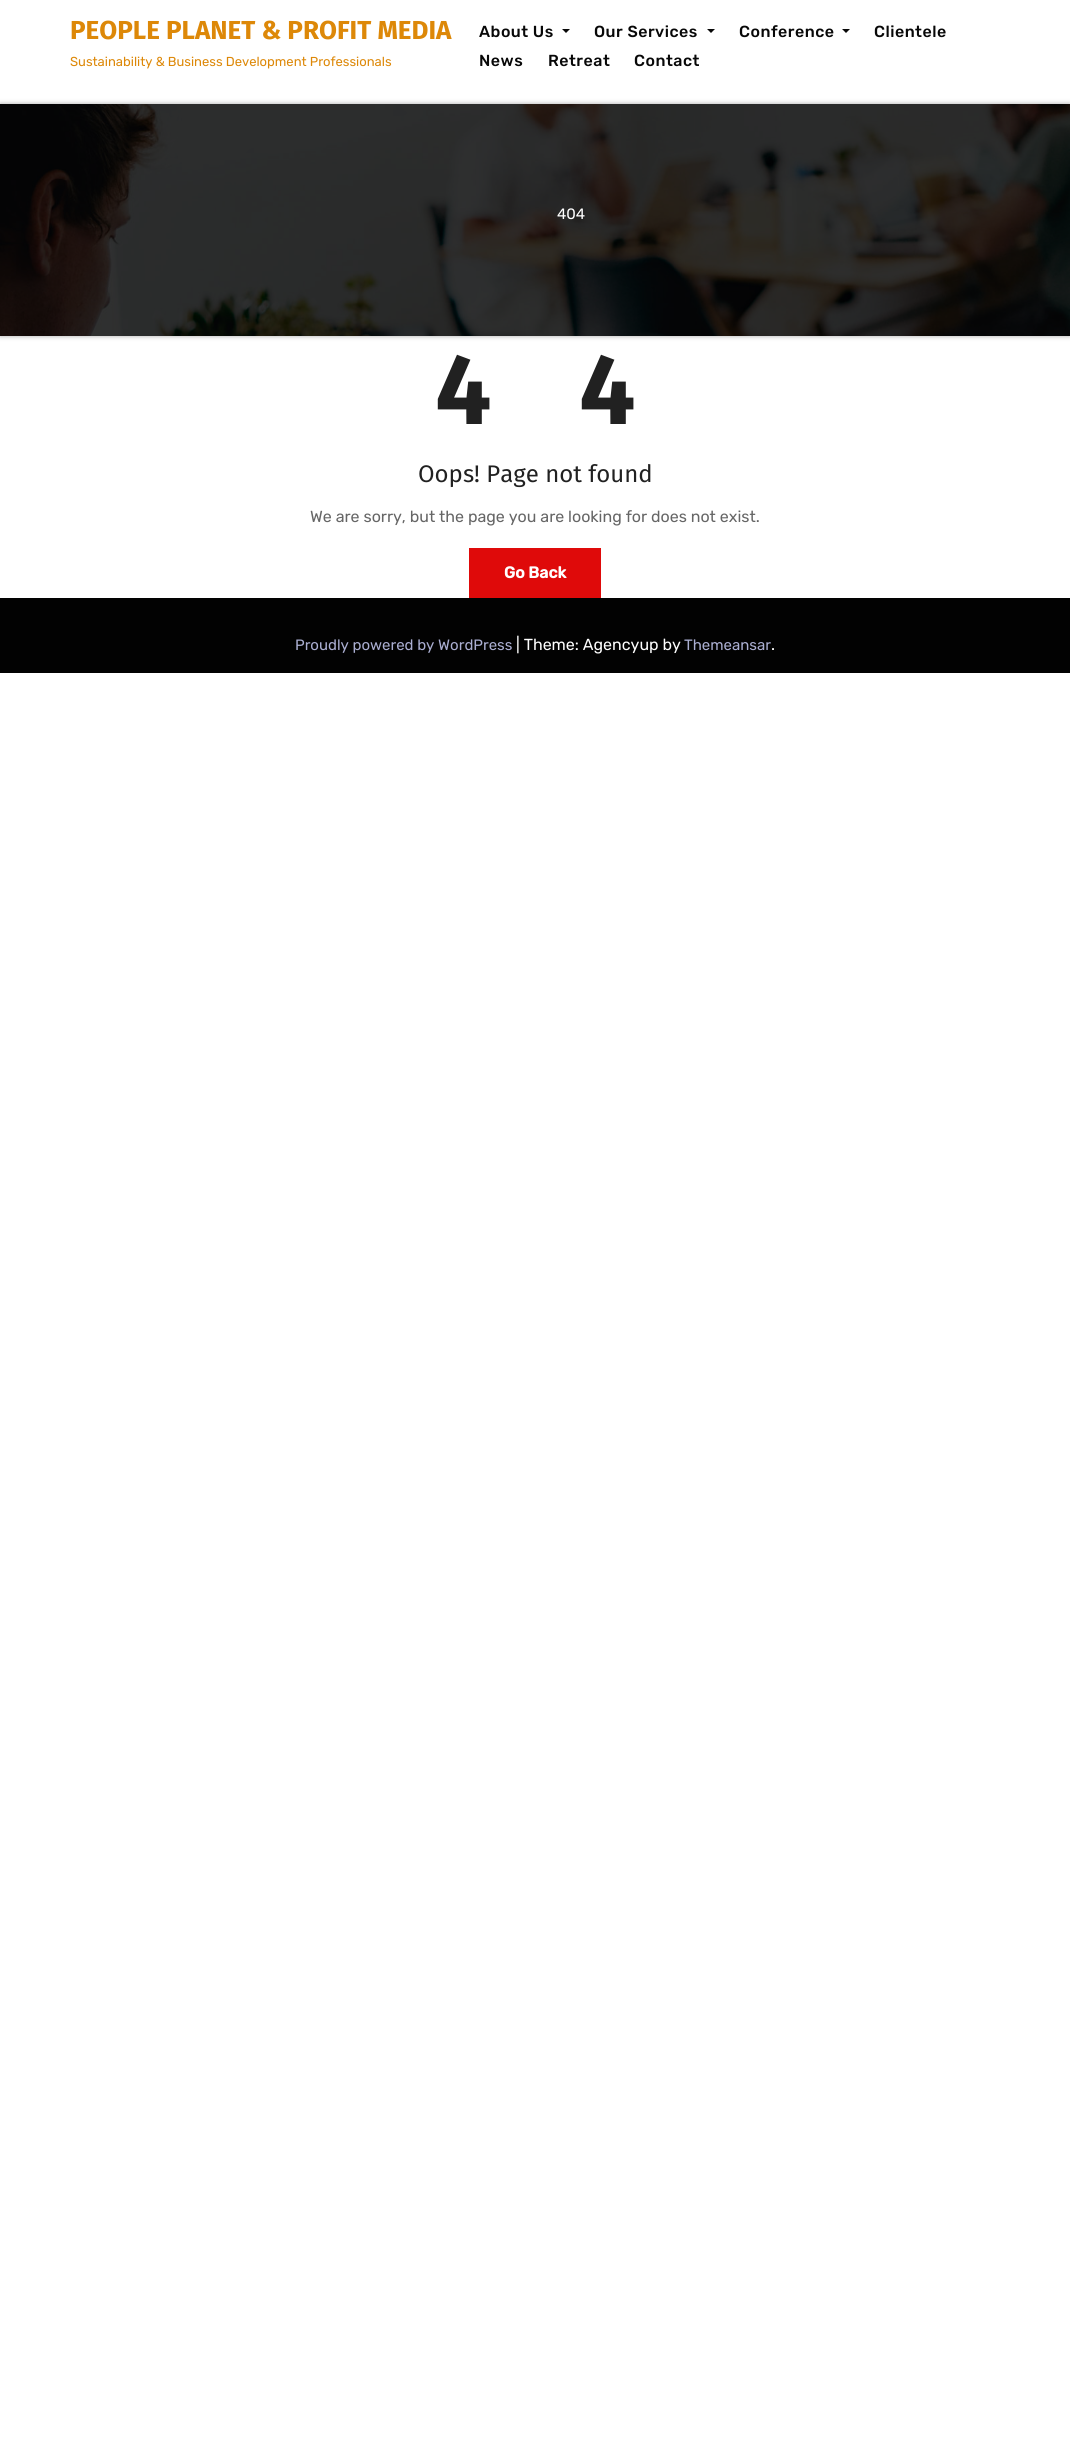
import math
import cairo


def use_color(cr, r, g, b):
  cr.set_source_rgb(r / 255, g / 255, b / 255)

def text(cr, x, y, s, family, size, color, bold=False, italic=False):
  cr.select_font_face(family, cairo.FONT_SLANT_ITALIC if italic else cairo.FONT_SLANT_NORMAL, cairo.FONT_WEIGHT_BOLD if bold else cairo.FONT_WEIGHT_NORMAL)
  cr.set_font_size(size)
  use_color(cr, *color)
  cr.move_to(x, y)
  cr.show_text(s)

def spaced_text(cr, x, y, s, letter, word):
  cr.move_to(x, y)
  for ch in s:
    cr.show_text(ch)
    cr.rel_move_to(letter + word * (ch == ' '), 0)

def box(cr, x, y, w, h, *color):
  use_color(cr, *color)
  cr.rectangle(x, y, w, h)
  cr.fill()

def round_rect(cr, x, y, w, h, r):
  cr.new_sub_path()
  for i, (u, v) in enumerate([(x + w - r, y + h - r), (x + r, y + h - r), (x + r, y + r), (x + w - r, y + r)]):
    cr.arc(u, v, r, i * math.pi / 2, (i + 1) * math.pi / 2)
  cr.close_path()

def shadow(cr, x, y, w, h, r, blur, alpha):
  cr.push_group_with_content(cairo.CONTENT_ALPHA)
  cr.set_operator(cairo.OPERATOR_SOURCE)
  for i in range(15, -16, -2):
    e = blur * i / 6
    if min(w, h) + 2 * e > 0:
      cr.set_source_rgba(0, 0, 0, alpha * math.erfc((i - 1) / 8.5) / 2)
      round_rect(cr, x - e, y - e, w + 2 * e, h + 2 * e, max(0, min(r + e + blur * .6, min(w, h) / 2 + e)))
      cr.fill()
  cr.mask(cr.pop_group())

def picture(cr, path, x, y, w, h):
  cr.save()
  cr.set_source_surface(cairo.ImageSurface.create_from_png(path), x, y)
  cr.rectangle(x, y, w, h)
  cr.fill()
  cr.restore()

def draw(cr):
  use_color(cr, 255, 255, 255)
  cr.paint()
  use_color(cr, 8, 8, 8)
  cr.new_path()
  cr.move_to(562, 29)
  cr.line_to(570, 29)
  cr.line_to(566, 33)
  cr.close_path()
  cr.fill()
  cr.new_path()
  cr.move_to(707, 29)
  cr.line_to(715, 29)
  cr.line_to(711, 33)
  cr.close_path()
  cr.fill()
  cr.new_path()
  cr.move_to(842, 29)
  cr.line_to(850, 29)
  cr.line_to(846, 33)
  cr.close_path()
  cr.fill()
  use_color(cr, 170, 170, 170)
  shadow(cr, 0, 104, 1070, 232, 0, 2.5, 1)
  picture(cr, "img_01.png", 0, 104, 1070, 232)
  box(cr, 469, 548, 132, 50, 223, 10, 10)
  box(cr, 0, 598, 1070, 75, 2, 2, 2)
  text(cr, 70, 39, "PEOPLE PLANET & PROFIT MEDIA", "Fira Sans", 26, (221, 136, 8), bold=True)
  text(cr, 70, 66, "Sustainability & Business Development Professionals", "Rubik", 13, (221, 136, 8))
  cr.select_font_face("Rubik Medium")
  cr.set_font_size(16)
  use_color(cr, 8, 8, 8)
  spaced_text(cr, 479, 37, "About Us", 0.5, 0)
  spaced_text(cr, 594, 37, "Our Services", 0.5, 0)
  spaced_text(cr, 739, 37, "Conference", 0.5, 0)
  spaced_text(cr, 874, 37, "Clientele", 0.5, 0)
  spaced_text(cr, 479, 66, "News", 0.5, 0)
  spaced_text(cr, 548, 66, "Retreat", 0.5, 0)
  spaced_text(cr, 634, 66, "Contact", 0.5, 0)
  text(cr, 557, 219, "404", "Rubik", 15, (255, 255, 255))
  text(cr, 435, 424, "4", "Fira Sans", 100, (33, 33, 33), bold=True)
  text(cr, 579, 424, "4", "Fira Sans", 100, (33, 33, 33), bold=True)
  text(cr, 418, 482, "Oops! Page not found", "Fira Sans", 24, (33, 33, 33))
  text(cr, 310, 522, "We are sorry, but the page you are looking for does not exist.", "Rubik", 16, (102, 102, 102))
  text(cr, 504, 578, "Go Back", "Rubik", 16, (255, 255, 255), bold=True)
  text(cr, 295, 650, "Proudly powered by WordPress", "Rubik", 15, (170, 174, 209))
  text(cr, 516, 650, "| Theme: Agencyup by", "Rubik", 16, (255, 255, 255))
  text(cr, 684, 650, "Themeansar", "Rubik", 15, (170, 174, 209))
  text(cr, 771, 650, ".", "Rubik", 16, (255, 255, 255))


surface = cairo.ImageSurface(cairo.FORMAT_RGB24, 1070, 2460)
cr = cairo.Context(surface)
options = cairo.FontOptions()
options.set_hint_metrics(cairo.HINT_METRICS_OFF)
options.set_hint_style(cairo.HINT_STYLE_NONE)
cr.set_font_options(options)
cr.set_miter_limit(4)
draw(cr)
surface.write_to_png("out.png")
